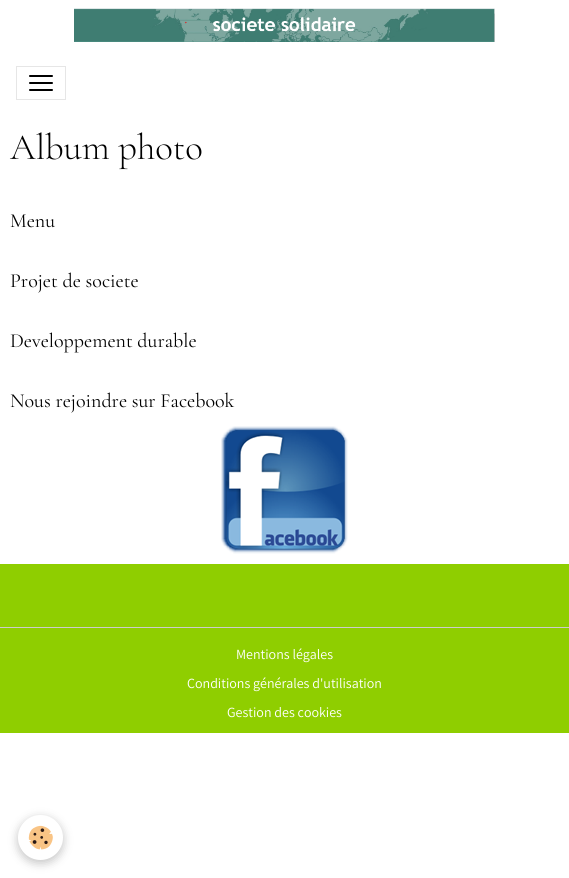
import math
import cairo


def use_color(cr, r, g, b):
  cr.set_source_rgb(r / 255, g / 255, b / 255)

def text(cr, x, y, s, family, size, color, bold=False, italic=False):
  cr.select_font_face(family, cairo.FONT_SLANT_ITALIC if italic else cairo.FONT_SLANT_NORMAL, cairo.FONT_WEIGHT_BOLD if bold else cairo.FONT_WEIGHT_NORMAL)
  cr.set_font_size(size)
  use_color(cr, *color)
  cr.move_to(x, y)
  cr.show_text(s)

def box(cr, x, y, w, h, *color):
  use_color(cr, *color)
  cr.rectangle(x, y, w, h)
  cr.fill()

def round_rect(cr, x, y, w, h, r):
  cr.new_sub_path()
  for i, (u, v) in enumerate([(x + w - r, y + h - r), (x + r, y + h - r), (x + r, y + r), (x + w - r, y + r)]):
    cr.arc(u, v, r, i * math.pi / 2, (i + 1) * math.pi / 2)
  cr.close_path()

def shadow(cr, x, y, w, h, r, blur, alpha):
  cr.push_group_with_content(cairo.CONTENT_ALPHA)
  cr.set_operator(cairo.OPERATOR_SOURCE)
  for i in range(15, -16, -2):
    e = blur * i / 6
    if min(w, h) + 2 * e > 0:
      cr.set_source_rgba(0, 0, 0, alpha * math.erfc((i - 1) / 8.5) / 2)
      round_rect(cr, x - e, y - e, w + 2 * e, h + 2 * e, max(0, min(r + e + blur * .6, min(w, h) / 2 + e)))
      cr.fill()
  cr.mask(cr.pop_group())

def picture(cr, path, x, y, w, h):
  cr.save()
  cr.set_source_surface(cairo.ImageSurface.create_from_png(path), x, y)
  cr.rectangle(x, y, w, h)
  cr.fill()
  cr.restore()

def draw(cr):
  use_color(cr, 255, 255, 255)
  cr.paint()
  picture(cr, "img_01.png", 74, 8, 421, 34)
  cr.rectangle(16.5, 66.5, 49, 33)
  use_color(cr, 230, 230, 230)
  cr.set_line_width(1)
  cr.stroke()
  use_color(cr, 0, 0, 0)
  round_rect(cr, 29, 75, 24, 2, 1)
  cr.fill()
  round_rect(cr, 29, 82, 24, 2, 1)
  cr.fill()
  round_rect(cr, 29, 89, 24, 2, 1)
  cr.fill()
  picture(cr, "img_02.png", 221, 426, 127, 128)
  box(cr, 0, 564, 569, 169, 143, 206, 0)
  box(cr, 0, 627, 569, 1, 204, 204, 204)
  use_color(cr, 0, 0, 0)
  shadow(cr, 18, 818, 45, 45, 22.5, 5, 0.24)
  use_color(cr, 255, 255, 255)
  cr.arc(40.5, 837.5, 22.5, 0, 2 * math.pi)
  cr.fill()
  picture(cr, "img_03.png", 28, 825, 25, 25)
  text(cr, 10, 159, "Album photo", "Cormorant Garamond Light", 36.75, (0, 0, 0))
  text(cr, 10, 227, "Menu", "Cormorant Garamond", 20, (0, 0, 0))
  text(cr, 10, 287, "Projet de societe", "Cormorant Garamond", 20, (0, 0, 0))
  text(cr, 10, 347, "Developpement durable", "Cormorant Garamond", 20, (0, 0, 0))
  text(cr, 10, 407, "Nous rejoindre sur Facebook", "Cormorant Garamond", 20, (0, 0, 0))
  text(cr, 236, 659, "Mentions légales", "Assistant", 14, (255, 255, 255))
  text(cr, 187, 688, "Conditions générales d'utilisation", "Assistant", 14, (255, 255, 255))
  text(cr, 227, 717, "Gestion des cookies", "Assistant", 14, (255, 255, 255))


surface = cairo.ImageSurface(cairo.FORMAT_RGB24, 569, 878)
cr = cairo.Context(surface)
options = cairo.FontOptions()
options.set_hint_metrics(cairo.HINT_METRICS_OFF)
options.set_hint_style(cairo.HINT_STYLE_NONE)
cr.set_font_options(options)
cr.set_miter_limit(4)
draw(cr)
surface.write_to_png("out.png")
